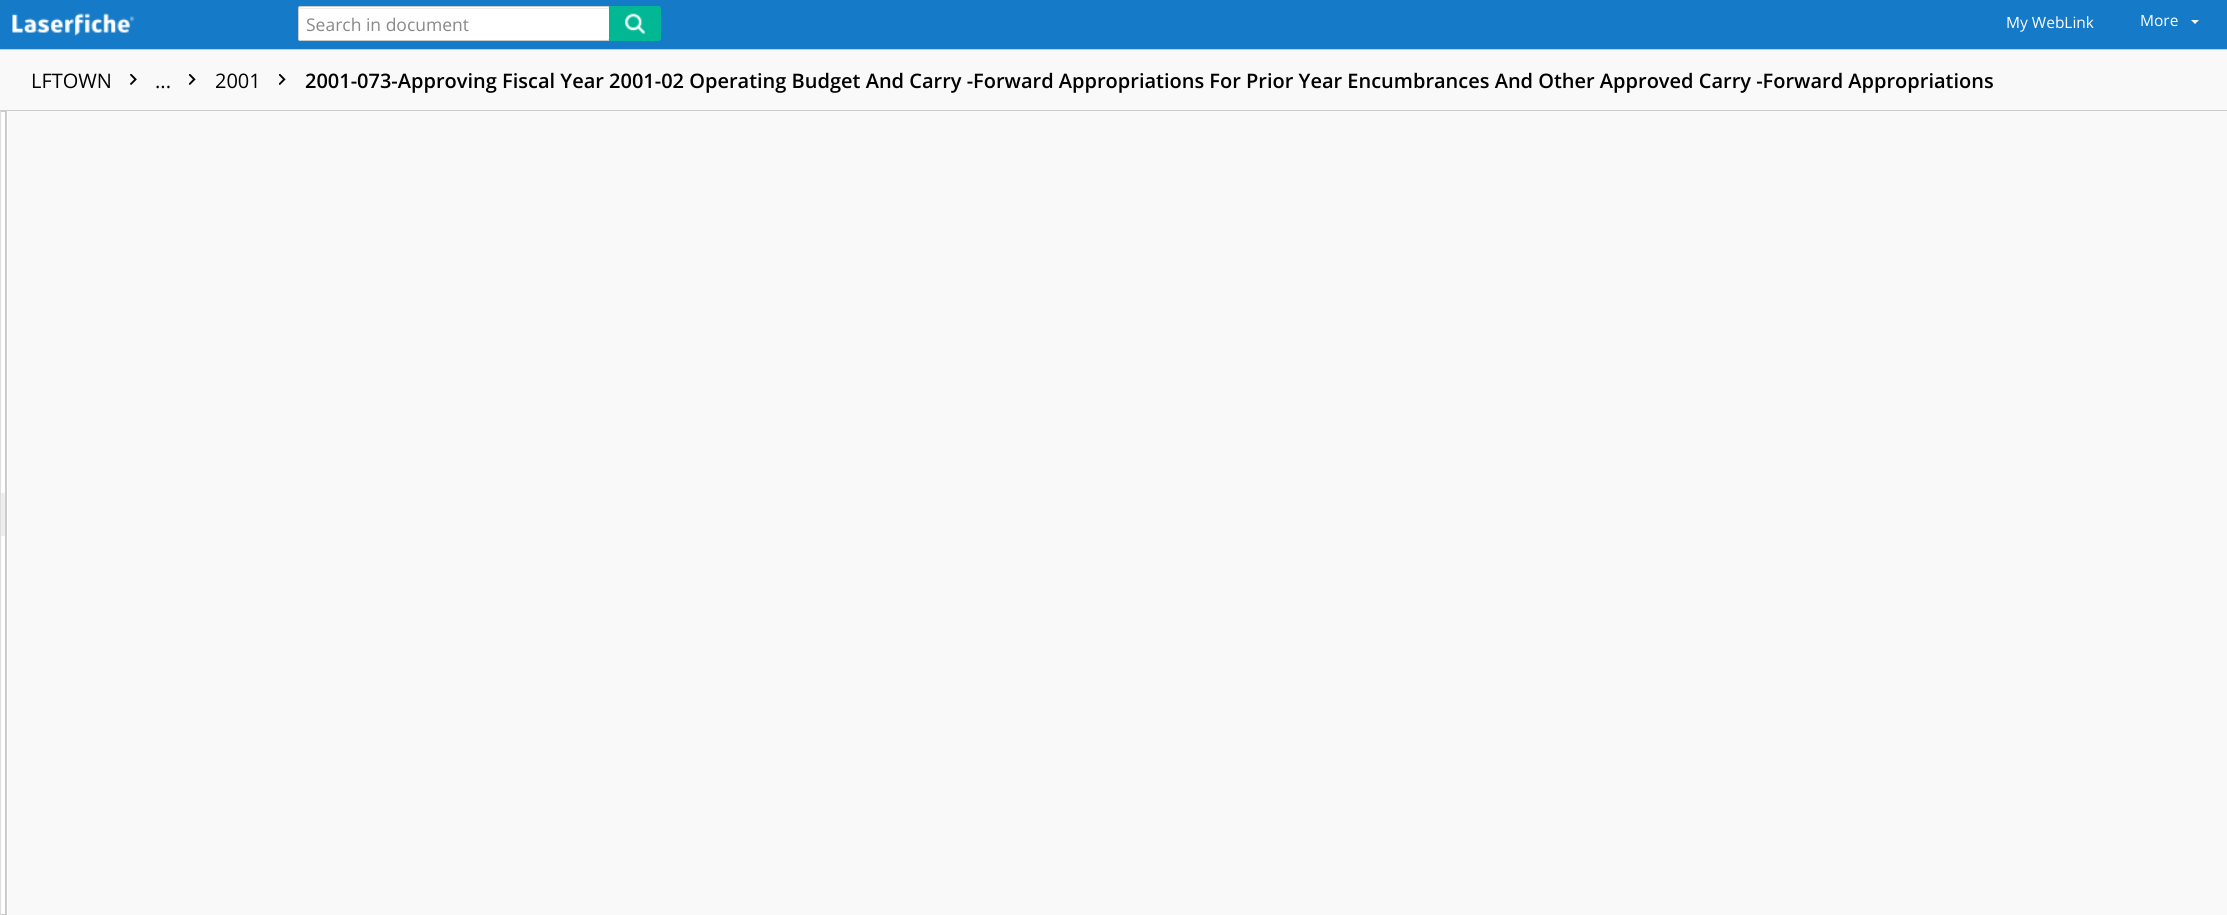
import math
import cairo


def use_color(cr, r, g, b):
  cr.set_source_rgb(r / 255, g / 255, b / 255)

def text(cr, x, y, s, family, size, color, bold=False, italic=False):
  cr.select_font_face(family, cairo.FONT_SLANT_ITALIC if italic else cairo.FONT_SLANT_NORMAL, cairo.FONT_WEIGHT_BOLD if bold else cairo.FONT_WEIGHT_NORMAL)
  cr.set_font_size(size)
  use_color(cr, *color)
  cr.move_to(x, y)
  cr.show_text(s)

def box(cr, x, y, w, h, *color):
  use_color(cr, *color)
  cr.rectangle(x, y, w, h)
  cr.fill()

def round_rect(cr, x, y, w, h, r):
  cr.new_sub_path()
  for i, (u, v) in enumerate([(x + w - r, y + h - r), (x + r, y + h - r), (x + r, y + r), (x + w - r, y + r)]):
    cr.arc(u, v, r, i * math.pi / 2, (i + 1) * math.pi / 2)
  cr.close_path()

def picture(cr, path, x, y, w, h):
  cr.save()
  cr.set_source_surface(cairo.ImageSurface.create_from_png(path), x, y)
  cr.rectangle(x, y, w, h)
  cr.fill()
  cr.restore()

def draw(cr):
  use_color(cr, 255, 255, 255)
  cr.paint()
  box(cr, 0, 0, 2227, 49, 21, 122, 199)
  box(cr, 0, 49, 2227, 1, 204, 204, 204)
  picture(cr, "img_01.png", 12, 13, 123, 23)
  use_color(cr, 255, 255, 255)
  round_rect(cr, 298, 6, 312, 35, 2.5)
  cr.fill()
  use_color(cr, 236, 236, 236)
  cr.new_path()
  cr.move_to(300, 9)
  cr.line_to(608, 9)
  cr.line_to(609, 10)
  cr.curve_to(609, 9, 609, 8, 608, 8)
  cr.line_to(300, 8)
  cr.line_to(299, 8)
  cr.line_to(299, 10)
  cr.curve_to(299, 9, 299, 9, 300, 9)
  cr.close_path()
  cr.fill()
  round_rect(cr, 298.5, 6.5, 311, 34, 2)
  use_color(cr, 204, 204, 204)
  cr.set_line_width(1)
  cr.stroke()
  use_color(cr, 2, 183, 147)
  cr.new_path()
  cr.move_to(609, 6)
  cr.line_to(658.5, 6)
  cr.curve_to(660, 6, 661, 7, 661, 8.5)
  cr.line_to(661, 38.5)
  cr.curve_to(661, 40, 660, 41, 658.5, 41)
  cr.line_to(609, 41)
  cr.close_path()
  cr.fill()
  picture(cr, "img_02.png", 625, 13, 20, 21)
  use_color(cr, 255, 255, 255)
  cr.new_path()
  cr.move_to(2191, 20)
  cr.line_to(2199, 20)
  cr.line_to(2195, 24)
  cr.close_path()
  cr.fill()
  box(cr, 0, 50, 2227, 60, 249, 249, 249)
  box(cr, 0, 110, 2227, 1, 204, 204, 204)
  picture(cr, "img_03.png", 130, 74, 7, 11)
  picture(cr, "img_04.png", 189, 74, 7, 11)
  picture(cr, "img_04.png", 279, 74, 7, 11)
  box(cr, 0, 111, 6, 1, 204, 204, 204)
  box(cr, 5, 111, 1, 804, 204, 204, 204)
  box(cr, 0, 914, 6, 1, 204, 204, 204)
  box(cr, 0, 111, 1, 804, 221, 221, 221)
  box(cr, 1, 493, 4, 43, 238, 238, 238)
  box(cr, 6, 111, 1, 804, 204, 204, 204)
  box(cr, 8, 111, 2219, 804, 249, 249, 249)
  text(cr, 306, 31, "Search in document", "Open Sans", 17.5, (137, 137, 137))
  text(cr, 2006, 28, "My WebLink", "Open Sans", 15.5, (255, 255, 255))
  text(cr, 2140, 26, "More", "Open Sans", 15.5, (255, 255, 255))
  text(cr, 31, 88, "LFTOWN", "Open Sans", 20, (0, 0, 0))
  text(cr, 155, 88, "...", "Open Sans", 20, (0, 0, 0))
  text(cr, 215, 88, "2001", "Open Sans", 20, (0, 0, 0))
  text(cr, 305, 88, "2001-073-Approving Fiscal Year 2001-02 Operating Budget And Carry -Forward Appropriations For Prior Year Encumbrances And Other Approved Carry -Forward Appropriations", "Open Sans SemiBold", 20, (0, 0, 0))


surface = cairo.ImageSurface(cairo.FORMAT_RGB24, 2227, 915)
cr = cairo.Context(surface)
options = cairo.FontOptions()
options.set_hint_metrics(cairo.HINT_METRICS_OFF)
options.set_hint_style(cairo.HINT_STYLE_NONE)
cr.set_font_options(options)
cr.set_miter_limit(4)
draw(cr)
surface.write_to_png("out.png")
